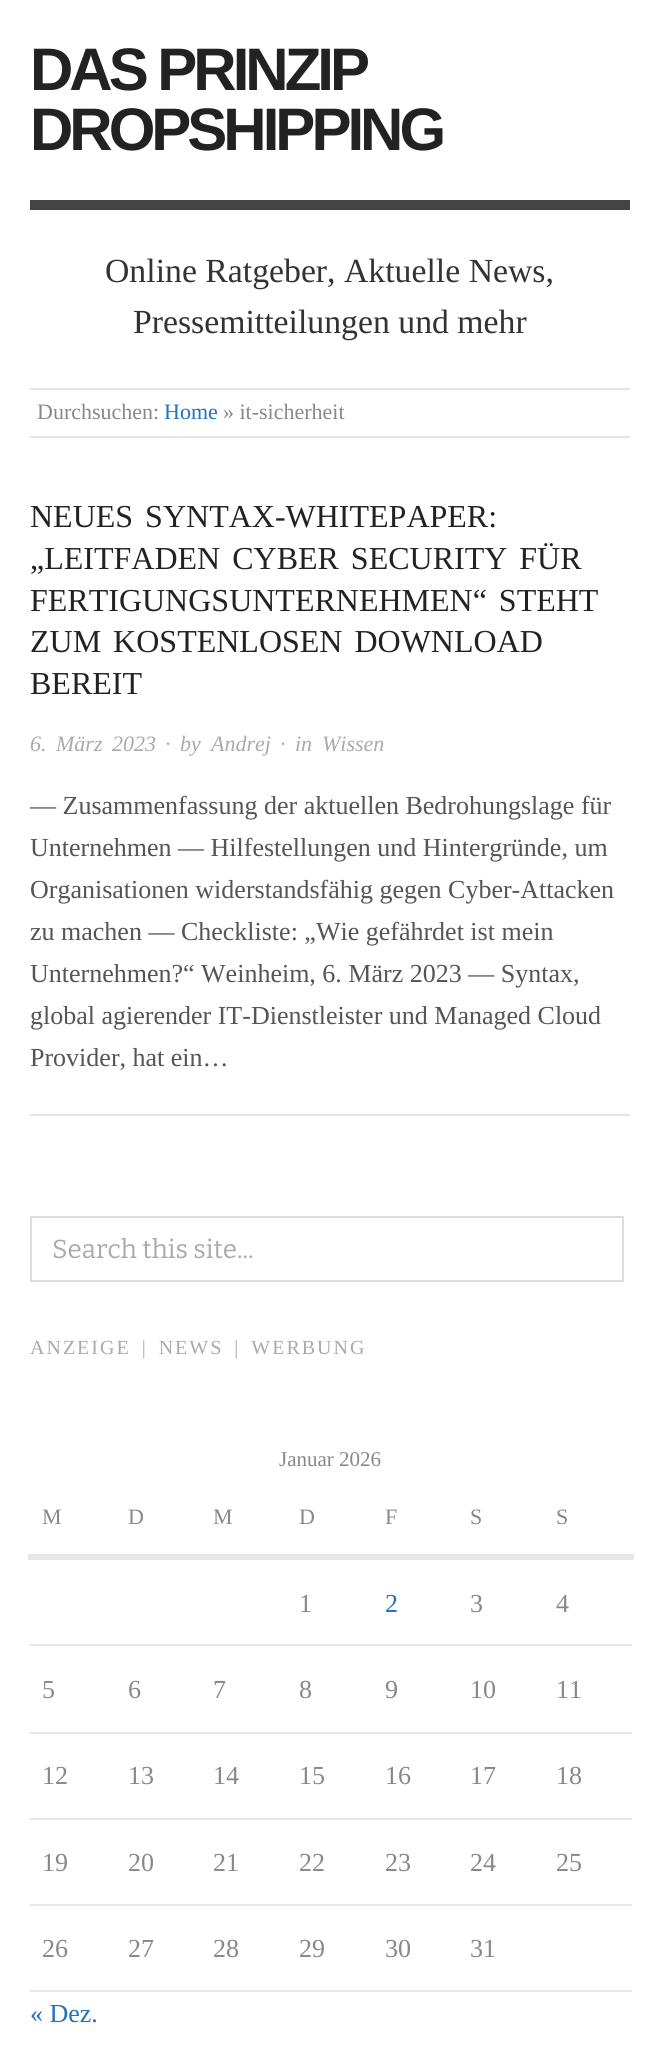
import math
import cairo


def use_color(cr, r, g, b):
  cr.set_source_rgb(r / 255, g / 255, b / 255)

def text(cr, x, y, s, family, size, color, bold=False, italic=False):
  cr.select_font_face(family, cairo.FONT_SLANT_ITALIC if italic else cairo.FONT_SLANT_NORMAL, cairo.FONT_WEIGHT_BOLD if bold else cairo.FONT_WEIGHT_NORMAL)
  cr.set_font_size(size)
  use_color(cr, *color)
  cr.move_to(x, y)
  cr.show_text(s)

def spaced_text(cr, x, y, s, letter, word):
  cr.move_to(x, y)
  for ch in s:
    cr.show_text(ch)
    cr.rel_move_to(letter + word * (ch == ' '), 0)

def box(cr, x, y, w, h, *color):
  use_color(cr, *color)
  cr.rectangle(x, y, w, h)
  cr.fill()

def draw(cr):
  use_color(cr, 255, 255, 255)
  cr.paint()
  box(cr, 30, 200, 600, 10, 68, 68, 68)
  box(cr, 30, 388, 600, 2, 229, 229, 229)
  box(cr, 30, 436, 600, 2, 229, 229, 229)
  box(cr, 30, 1114, 600, 2, 229, 229, 229)
  cr.rectangle(31, 1217, 592, 64)
  use_color(cr, 221, 221, 221)
  cr.stroke()
  box(cr, 28, 1554, 606, 6, 231, 231, 231)
  box(cr, 30, 1644, 602, 2, 231, 231, 231)
  box(cr, 30, 1732, 602, 2, 231, 231, 231)
  box(cr, 30, 1818, 602, 2, 231, 231, 231)
  box(cr, 30, 1904, 602, 2, 231, 231, 231)
  box(cr, 30, 1990, 602, 2, 231, 231, 231)
  cr.select_font_face("Liberation Sans", cairo.FONT_SLANT_NORMAL, cairo.FONT_WEIGHT_BOLD)
  cr.set_font_size(60)
  use_color(cr, 34, 34, 34)
  spaced_text(cr, 30, 90, "DAS PRINZIP", -4, 0)
  spaced_text(cr, 30, 150, "DROPSHIPPING", -4, 0)
  text(cr, 105, 282, "Online Ratgeber, Aktuelle News,", "Liberation Serif", 33.75, (51, 51, 51))
  text(cr, 133, 333, "Pressemitteilungen und mehr", "Liberation Serif", 33.75, (51, 51, 51))
  text(cr, 37, 419, "Durchsuchen:", "Liberation Serif", 22, (136, 136, 136))
  text(cr, 164, 419, "Home", "Liberation Serif", 22, (30, 115, 190))
  text(cr, 223, 419, "» it-sicherheit", "Liberation Serif", 22, (136, 136, 136))
  cr.set_font_size(32)
  use_color(cr, 34, 34, 34)
  spaced_text(cr, 30, 527, "NEUES SYNTAX-WHITEPAPER:", 0, 4)
  spaced_text(cr, 30, 569, "„LEITFADEN CYBER SECURITY FÜR", 0, 4)
  spaced_text(cr, 30, 611, "FERTIGUNGSUNTERNEHMEN“ STEHT", 0, 4)
  spaced_text(cr, 30, 652, "ZUM KOSTENLOSEN DOWNLOAD", 0, 4)
  text(cr, 30, 694, "BEREIT", "Liberation Serif", 32, (34, 34, 34))
  cr.select_font_face("Liberation Serif", cairo.FONT_SLANT_ITALIC)
  cr.set_font_size(22)
  use_color(cr, 170, 170, 170)
  spaced_text(cr, 30, 751, "6. März 2023", 0, 4)
  spaced_text(cr, 165, 751, "· by", 0, 4)
  text(cr, 211, 751, "Andrej", "Liberation Serif", 22, (170, 170, 170), italic=True)
  spaced_text(cr, 280, 751, "· in", 0, 4)
  text(cr, 322, 751, "Wissen", "Liberation Serif", 22, (170, 170, 170), italic=True)
  text(cr, 30, 814, "— Zusammenfassung der aktuellen Bedrohungslage für", "Liberation Serif", 26, (85, 85, 85))
  text(cr, 30, 856, "Unternehmen — Hilfestellungen und Hintergründe, um", "Liberation Serif", 26, (85, 85, 85))
  text(cr, 30, 898, "Organisationen widerstandsfähig gegen Cyber-Attacken", "Liberation Serif", 26, (85, 85, 85))
  text(cr, 30, 940, "zu machen — Checkliste: „Wie gefährdet ist mein", "Liberation Serif", 26, (85, 85, 85))
  text(cr, 30, 982, "Unternehmen?“ Weinheim, 6. März 2023 — Syntax,", "Liberation Serif", 26, (85, 85, 85))
  text(cr, 30, 1024, "global agierender IT-Dienstleister und Managed Cloud", "Liberation Serif", 26, (85, 85, 85))
  text(cr, 30, 1066, "Provider, hat ein…", "Liberation Serif", 26, (85, 85, 85))
  text(cr, 52, 1258, "Search this site...", "Bitter", 26, (170, 170, 170))
  cr.select_font_face("Liberation Serif")
  cr.set_font_size(20)
  spaced_text(cr, 30, 1354, "ANZEIGE | NEWS | WERBUNG", 2, 4)
  text(cr, 279, 1466, "Januar 2026", "Liberation Serif", 21, (136, 136, 136))
  text(cr, 42, 1524, "M", "Liberation Serif", 22, (136, 136, 136))
  text(cr, 128, 1524, "D", "Liberation Serif", 22, (136, 136, 136))
  text(cr, 213, 1524, "M", "Liberation Serif", 22, (136, 136, 136))
  text(cr, 299, 1524, "D", "Liberation Serif", 22, (136, 136, 136))
  text(cr, 385, 1524, "F", "Liberation Serif", 22, (136, 136, 136))
  text(cr, 470, 1524, "S", "Liberation Serif", 22, (136, 136, 136))
  text(cr, 556, 1524, "S", "Liberation Serif", 22, (136, 136, 136))
  text(cr, 299, 1612, "1", "Liberation Serif", 26, (136, 136, 136))
  text(cr, 385, 1612, "2", "Liberation Serif", 26, (30, 115, 190))
  text(cr, 470, 1612, "3", "Liberation Serif", 26, (136, 136, 136))
  text(cr, 556, 1612, "4", "Liberation Serif", 26, (136, 136, 136))
  text(cr, 42, 1698, "5", "Liberation Serif", 26, (136, 136, 136))
  text(cr, 128, 1698, "6", "Liberation Serif", 26, (136, 136, 136))
  text(cr, 213, 1698, "7", "Liberation Serif", 26, (136, 136, 136))
  text(cr, 299, 1698, "8", "Liberation Serif", 26, (136, 136, 136))
  text(cr, 385, 1698, "9", "Liberation Serif", 26, (136, 136, 136))
  text(cr, 470, 1698, "10", "Liberation Serif", 26, (136, 136, 136))
  text(cr, 556, 1698, "11", "Liberation Serif", 26, (136, 136, 136))
  text(cr, 42, 1784, "12", "Liberation Serif", 26, (136, 136, 136))
  text(cr, 128, 1784, "13", "Liberation Serif", 26, (136, 136, 136))
  text(cr, 213, 1784, "14", "Liberation Serif", 26, (136, 136, 136))
  text(cr, 299, 1784, "15", "Liberation Serif", 26, (136, 136, 136))
  text(cr, 385, 1784, "16", "Liberation Serif", 26, (136, 136, 136))
  text(cr, 470, 1784, "17", "Liberation Serif", 26, (136, 136, 136))
  text(cr, 556, 1784, "18", "Liberation Serif", 26, (136, 136, 136))
  text(cr, 42, 1871, "19", "Liberation Serif", 26, (136, 136, 136))
  text(cr, 128, 1871, "20", "Liberation Serif", 26, (136, 136, 136))
  text(cr, 213, 1871, "21", "Liberation Serif", 26, (136, 136, 136))
  text(cr, 299, 1871, "22", "Liberation Serif", 26, (136, 136, 136))
  text(cr, 385, 1871, "23", "Liberation Serif", 26, (136, 136, 136))
  text(cr, 470, 1871, "24", "Liberation Serif", 26, (136, 136, 136))
  text(cr, 556, 1871, "25", "Liberation Serif", 26, (136, 136, 136))
  text(cr, 42, 1957, "26", "Liberation Serif", 26, (136, 136, 136))
  text(cr, 128, 1957, "27", "Liberation Serif", 26, (136, 136, 136))
  text(cr, 213, 1957, "28", "Liberation Serif", 26, (136, 136, 136))
  text(cr, 299, 1957, "29", "Liberation Serif", 26, (136, 136, 136))
  text(cr, 385, 1957, "30", "Liberation Serif", 26, (136, 136, 136))
  text(cr, 470, 1957, "31", "Liberation Serif", 26, (136, 136, 136))
  text(cr, 30, 2022, "« Dez.", "Liberation Serif", 26, (30, 115, 190))


surface = cairo.ImageSurface(cairo.FORMAT_RGB24, 660, 2072)
cr = cairo.Context(surface)
options = cairo.FontOptions()
options.set_hint_metrics(cairo.HINT_METRICS_OFF)
options.set_hint_style(cairo.HINT_STYLE_NONE)
cr.set_font_options(options)
cr.set_miter_limit(4)
draw(cr)
surface.write_to_png("out.png")
